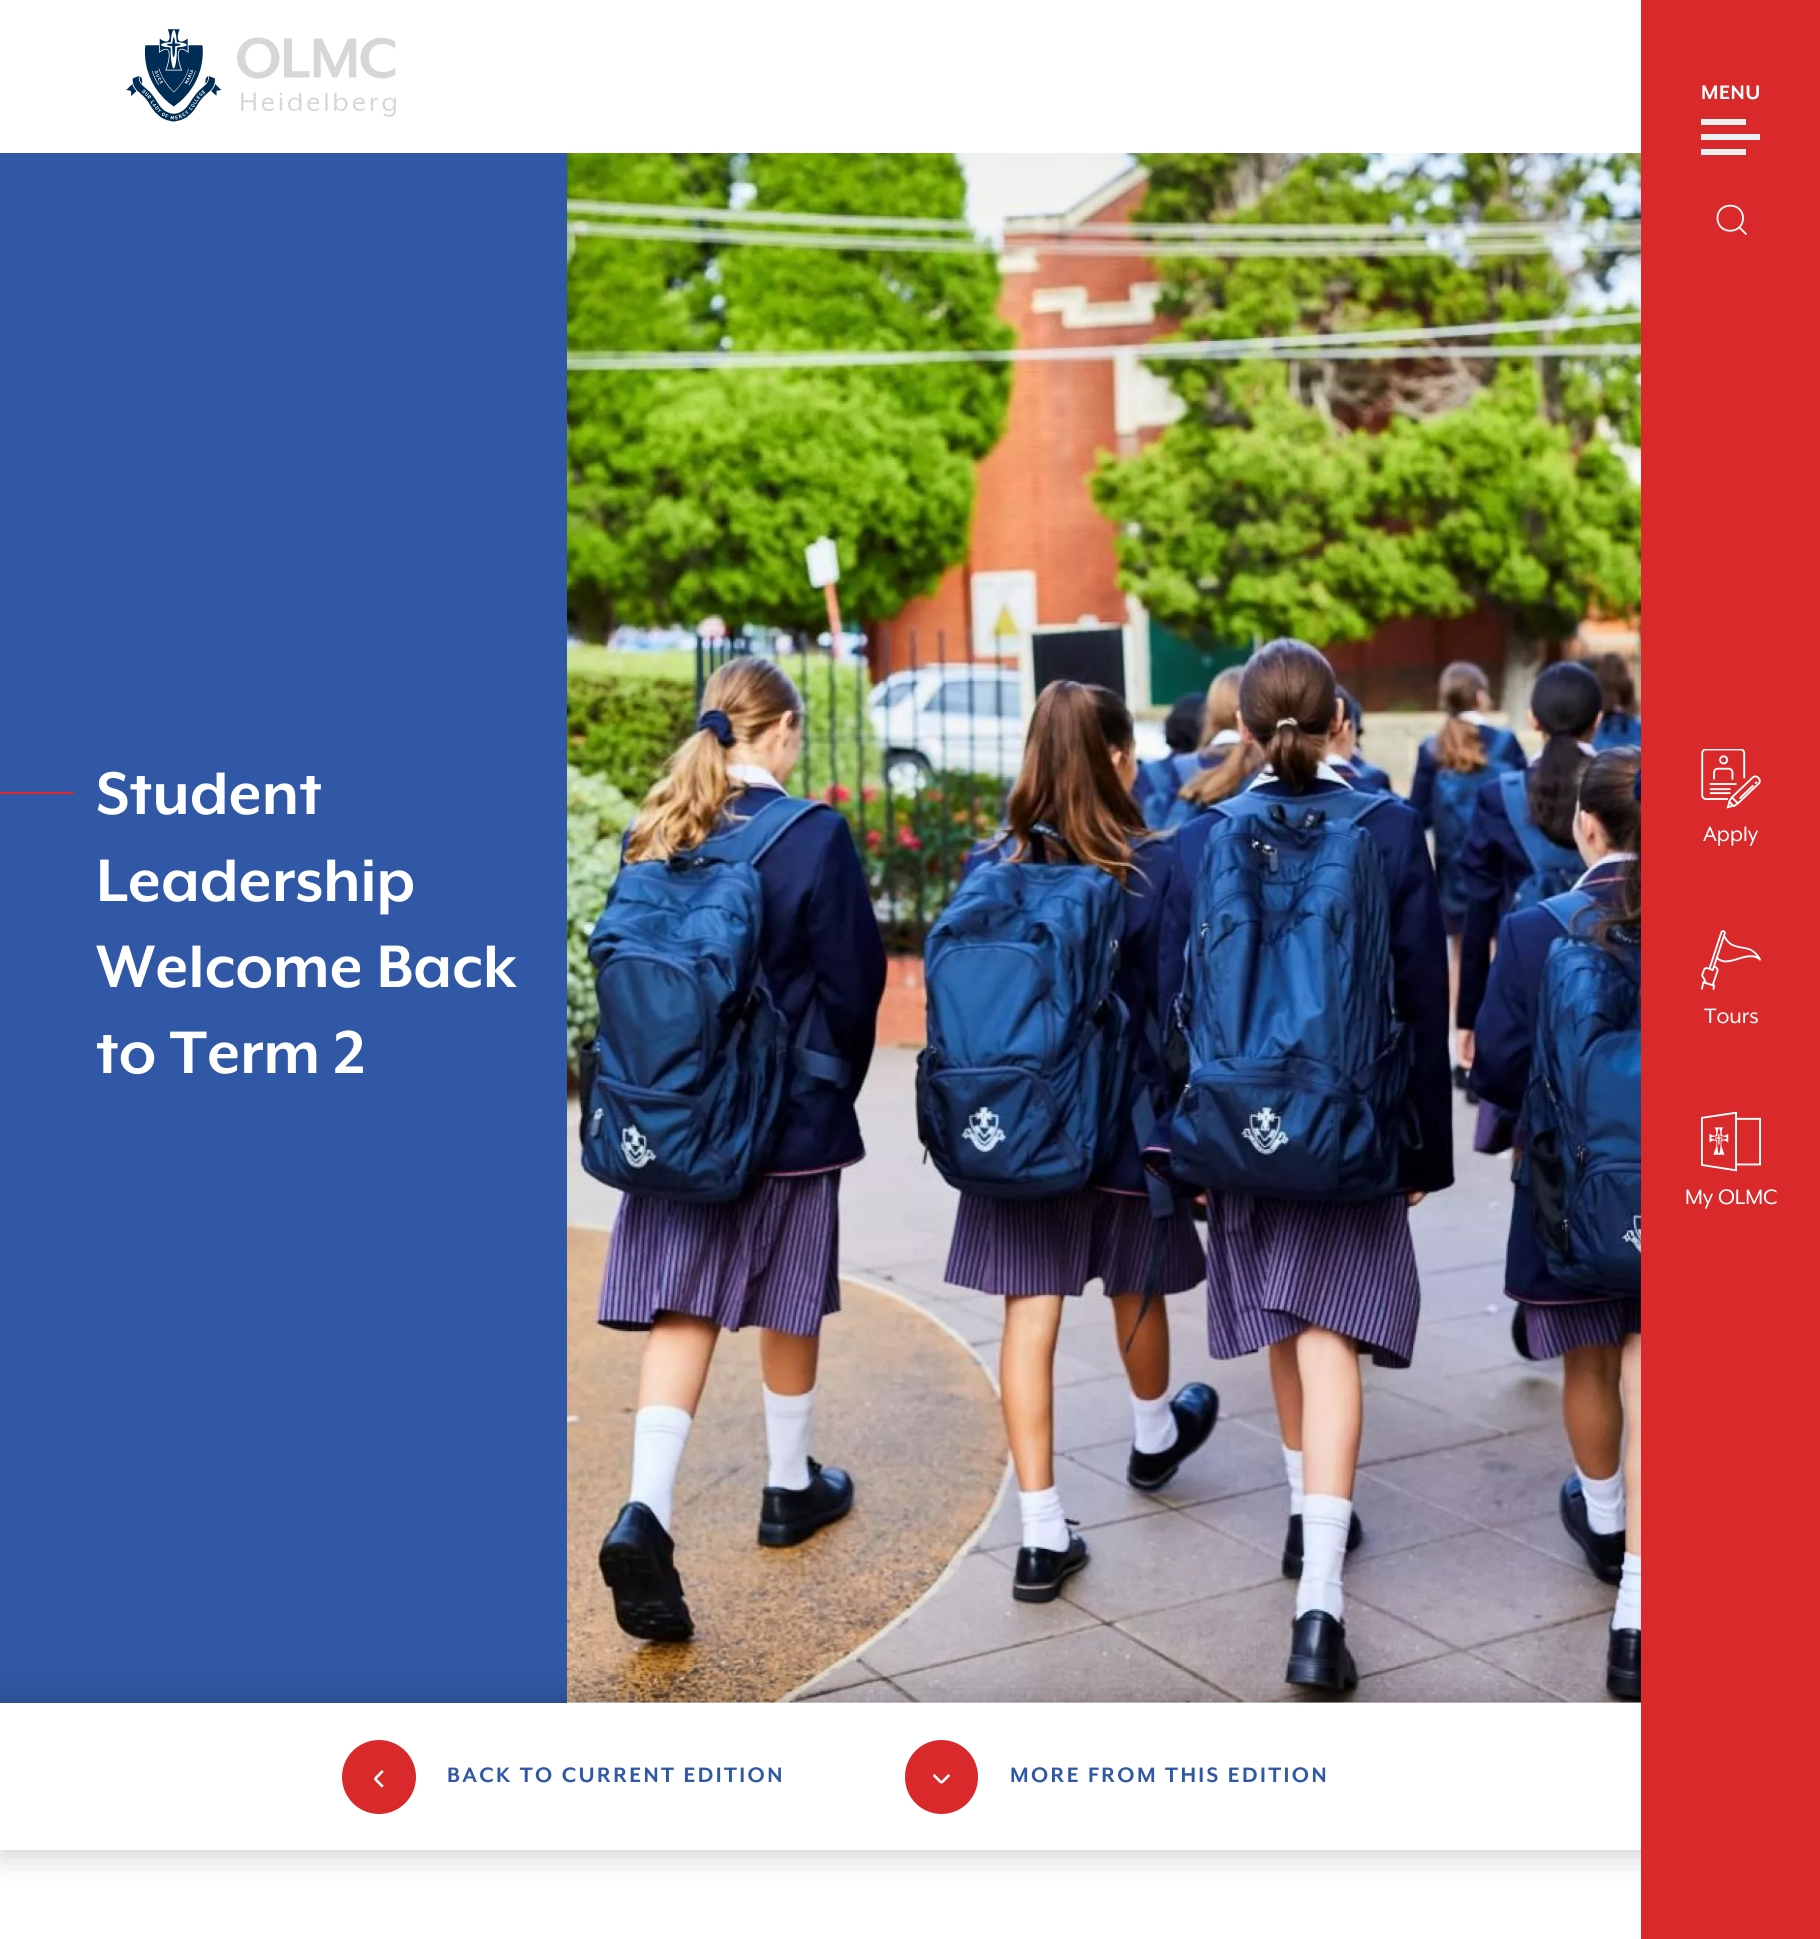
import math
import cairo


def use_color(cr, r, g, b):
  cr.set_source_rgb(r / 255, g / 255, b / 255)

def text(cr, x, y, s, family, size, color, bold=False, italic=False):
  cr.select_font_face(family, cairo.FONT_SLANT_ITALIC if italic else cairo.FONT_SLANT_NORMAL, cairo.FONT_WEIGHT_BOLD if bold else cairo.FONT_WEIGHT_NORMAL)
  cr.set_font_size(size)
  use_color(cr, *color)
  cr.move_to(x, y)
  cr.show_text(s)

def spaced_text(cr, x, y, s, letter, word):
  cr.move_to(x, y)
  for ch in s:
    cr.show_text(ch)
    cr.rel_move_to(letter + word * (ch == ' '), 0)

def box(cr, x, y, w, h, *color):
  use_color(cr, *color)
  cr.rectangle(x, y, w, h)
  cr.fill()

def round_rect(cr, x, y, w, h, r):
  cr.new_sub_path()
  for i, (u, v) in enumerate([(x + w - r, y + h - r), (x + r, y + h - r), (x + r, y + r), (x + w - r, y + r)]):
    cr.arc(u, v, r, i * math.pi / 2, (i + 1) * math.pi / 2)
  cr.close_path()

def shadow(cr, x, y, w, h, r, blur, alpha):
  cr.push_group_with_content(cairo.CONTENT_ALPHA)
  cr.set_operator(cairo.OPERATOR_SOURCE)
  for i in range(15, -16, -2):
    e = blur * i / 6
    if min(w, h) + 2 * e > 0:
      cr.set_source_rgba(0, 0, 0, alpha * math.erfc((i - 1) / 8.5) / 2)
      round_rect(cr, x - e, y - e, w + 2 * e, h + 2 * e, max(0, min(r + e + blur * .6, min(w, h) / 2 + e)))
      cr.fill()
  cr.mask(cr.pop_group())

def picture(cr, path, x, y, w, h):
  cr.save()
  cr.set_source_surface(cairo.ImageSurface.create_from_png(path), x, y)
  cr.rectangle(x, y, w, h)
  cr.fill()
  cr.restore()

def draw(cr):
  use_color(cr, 255, 255, 255)
  cr.paint()
  picture(cr, "img_01.png", 126, 29, 270, 93)
  box(cr, 0, 153, 567, 1550, 49, 88, 166)
  box(cr, 0, 792, 74, 2, 217, 41, 42)
  picture(cr, "img_02.png", 567, 153, 1074, 1550)
  use_color(cr, 0, 0, 0)
  shadow(cr, 0, 1703, 1701, 147, 0, 18, 0.25)
  box(cr, 0, 1703, 1641, 147, 255, 255, 255)
  use_color(cr, 217, 41, 42)
  cr.arc(379, 1777, 37, 0, 2 * math.pi)
  cr.fill()
  picture(cr, "img_03.png", 374, 1770, 10, 18)
  round_rect(cr, 905, 1740, 73, 74, 36.5)
  cr.fill()
  picture(cr, "img_04.png", 932, 1774, 19, 10)
  box(cr, 1641, 0, 179, 1939, 217, 41, 42)
  box(cr, 1701, 119, 45, 6, 236, 240, 241)
  box(cr, 1701, 134, 59, 6, 236, 240, 241)
  box(cr, 1701, 149, 45, 6, 236, 240, 241)
  cr.new_path()
  cr.move_to(1746, 234)
  cr.line_to(1739.5, 227.5)
  cr.close_path()
  cr.move_to(1743, 218)
  cr.curve_to(1743, 235, 1717.5, 235, 1717.5, 218)
  cr.curve_to(1717.5, 201.5, 1743, 201.5, 1743, 218)
  cr.close_path()
  use_color(cr, 255, 255, 255)
  cr.set_line_width(1.8)
  cr.set_line_cap(cairo.LINE_CAP_ROUND)
  cr.set_line_join(cairo.LINE_JOIN_ROUND)
  cr.stroke()
  picture(cr, "img_05.png", 1701, 749, 60, 60)
  picture(cr, "img_06.png", 1701, 930, 60, 60)
  picture(cr, "img_07.png", 1701, 1112, 60, 60)
  text(cr, 96, 814, "Student", "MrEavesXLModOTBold", 69, (255, 255, 255), bold=True)
  text(cr, 96, 901, "Leadership", "MrEavesXLModOTBold", 69, (255, 255, 255), bold=True)
  text(cr, 96, 987, "Welcome Back", "MrEavesXLModOTBold", 69, (255, 255, 255), bold=True)
  text(cr, 96, 1073, "to Term 2", "MrEavesXLModOTBold", 69, (255, 255, 255), bold=True)
  cr.set_font_size(24)
  use_color(cr, 49, 88, 166)
  spaced_text(cr, 447, 1782, "BACK TO CURRENT EDITION", 2.4, 0)
  spaced_text(cr, 1010, 1782, "MORE FROM THIS EDITION", 2.4, 0)
  cr.set_font_size(22.5)
  use_color(cr, 255, 255, 255)
  spaced_text(cr, 1701, 99, "MENU", 0.5, 0)
  text(cr, 1703, 841, "Apply", "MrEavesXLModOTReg", 24, (255, 255, 255))
  text(cr, 1704, 1023, "Tours", "MrEavesXLModOTReg", 24, (255, 255, 255))
  text(cr, 1685, 1204, "My OLMC", "MrEavesXLModOTReg", 24, (255, 255, 255))


surface = cairo.ImageSurface(cairo.FORMAT_RGB24, 1820, 1939)
cr = cairo.Context(surface)
options = cairo.FontOptions()
options.set_hint_metrics(cairo.HINT_METRICS_OFF)
options.set_hint_style(cairo.HINT_STYLE_NONE)
cr.set_font_options(options)
cr.set_miter_limit(4)
draw(cr)
surface.write_to_png("out.png")
